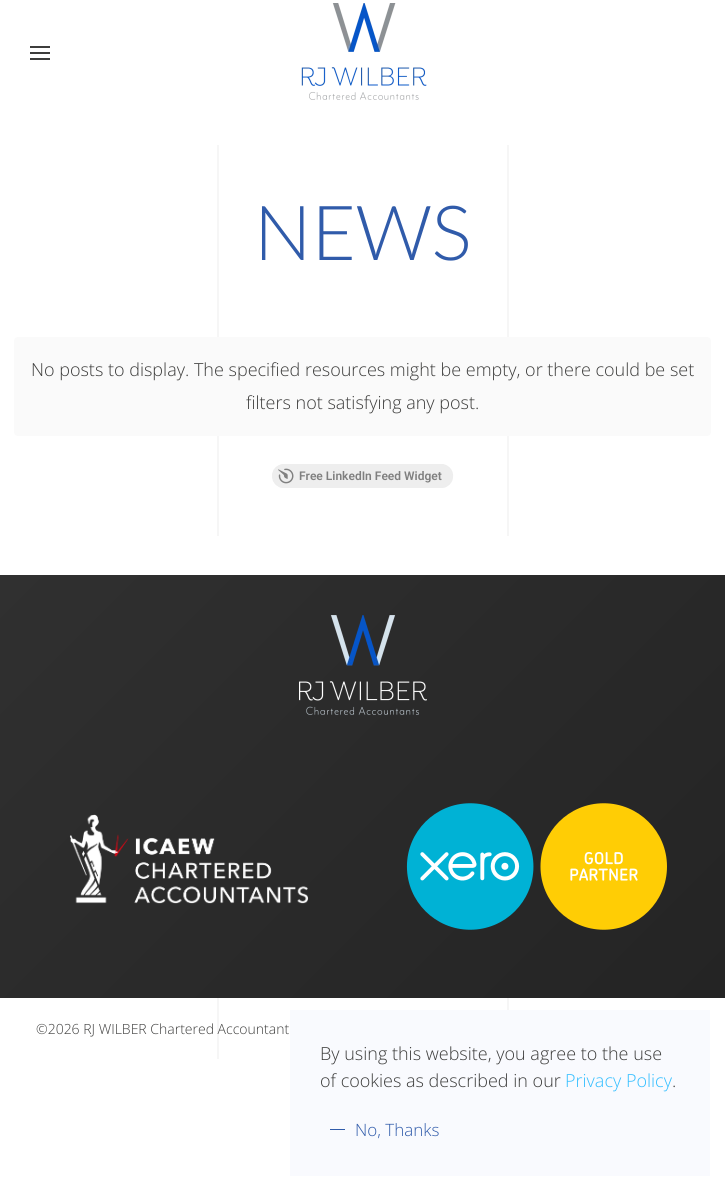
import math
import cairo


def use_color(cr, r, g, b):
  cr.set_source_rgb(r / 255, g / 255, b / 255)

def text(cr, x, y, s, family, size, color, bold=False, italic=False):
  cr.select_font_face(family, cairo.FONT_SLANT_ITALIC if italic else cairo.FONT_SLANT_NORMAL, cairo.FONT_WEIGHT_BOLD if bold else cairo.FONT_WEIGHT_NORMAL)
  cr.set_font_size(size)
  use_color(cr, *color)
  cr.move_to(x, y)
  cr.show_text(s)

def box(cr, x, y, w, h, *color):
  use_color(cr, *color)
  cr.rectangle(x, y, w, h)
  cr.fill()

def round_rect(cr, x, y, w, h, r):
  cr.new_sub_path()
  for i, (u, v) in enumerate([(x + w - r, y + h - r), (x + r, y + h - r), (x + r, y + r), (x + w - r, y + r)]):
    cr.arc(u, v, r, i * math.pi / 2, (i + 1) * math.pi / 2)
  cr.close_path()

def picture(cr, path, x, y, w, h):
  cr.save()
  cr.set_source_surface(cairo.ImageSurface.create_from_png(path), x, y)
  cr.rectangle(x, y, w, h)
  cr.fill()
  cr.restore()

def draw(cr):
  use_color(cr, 255, 255, 255)
  cr.paint()
  box(cr, 30, 46, 20, 2, 61, 61, 60)
  box(cr, 30, 52, 20, 2, 61, 61, 60)
  box(cr, 30, 58, 20, 2, 61, 61, 60)
  picture(cr, "img_01.png", 301, 3, 126, 97)
  picture(cr, "img_02.png", 217, 145, 292, 132)
  picture(cr, "img_03.png", 217, 277, 292, 259)
  use_color(cr, 250, 250, 250)
  round_rect(cr, 14, 337, 697, 99, 4)
  cr.fill()
  cr.set_source_rgba(0.933, 0.933, 0.933, 0.9)
  round_rect(cr, 272, 464, 181, 24, 12)
  cr.fill()
  picture(cr, "img_04.png", 278, 468, 16, 16)
  gradient = cairo.LinearGradient(76, 500, 650, 1074)
  gradient.add_color_stop_rgba(0, 0.188, 0.188, 0.188, 1)
  gradient.add_color_stop_rgba(1, 0.141, 0.141, 0.141, 1)
  cr.set_source(gradient)
  cr.rectangle(0, 575, 725, 423)
  cr.fill()
  picture(cr, "img_05.png", 299, 615, 128, 100)
  picture(cr, "img_06.png", 69, 814, 240, 90)
  picture(cr, "img_07.png", 406, 803, 261, 127)
  picture(cr, "img_08.png", 217, 998, 292, 61)
  box(cr, 290, 1010, 420, 166, 249, 250, 254)
  box(cr, 330, 1129, 15, 1, 48, 91, 170)
  text(cr, 254, 260, "NEWS", "Lato Light", 76, (48, 91, 170))
  text(cr, 31, 376, "No posts to display. The specified resources might be empty, or there could be set", "Open Sans Light", 18, (61, 61, 60))
  text(cr, 246, 409, "filters not satisfying any post.", "Open Sans Light", 18, (61, 61, 60))
  text(cr, 299, 480, "Free LinkedIn Feed Widget", "Roboto SemiBold", 12, (128, 128, 128))
  text(cr, 36, 1034, "©2026 RJ WILBER Chartered Accountant", "Open Sans Light", 14, (61, 61, 60))
  text(cr, 320, 1060, "By using this website, you agree to the use", "Open Sans Light", 18, (61, 61, 60))
  text(cr, 320, 1087, "of cookies as described in our", "Open Sans Light", 18, (61, 61, 60))
  text(cr, 565, 1087, "Privacy Policy", "Open Sans Light", 18, (50, 190, 255))
  text(cr, 672, 1087, ".", "Open Sans Light", 18, (61, 61, 60))
  text(cr, 355, 1136, "No, Thanks", "Open Sans Light", 17, (48, 91, 170))


surface = cairo.ImageSurface(cairo.FORMAT_RGB24, 725, 1191)
cr = cairo.Context(surface)
options = cairo.FontOptions()
options.set_hint_metrics(cairo.HINT_METRICS_OFF)
options.set_hint_style(cairo.HINT_STYLE_NONE)
cr.set_font_options(options)
cr.set_miter_limit(4)
draw(cr)
surface.write_to_png("out.png")
